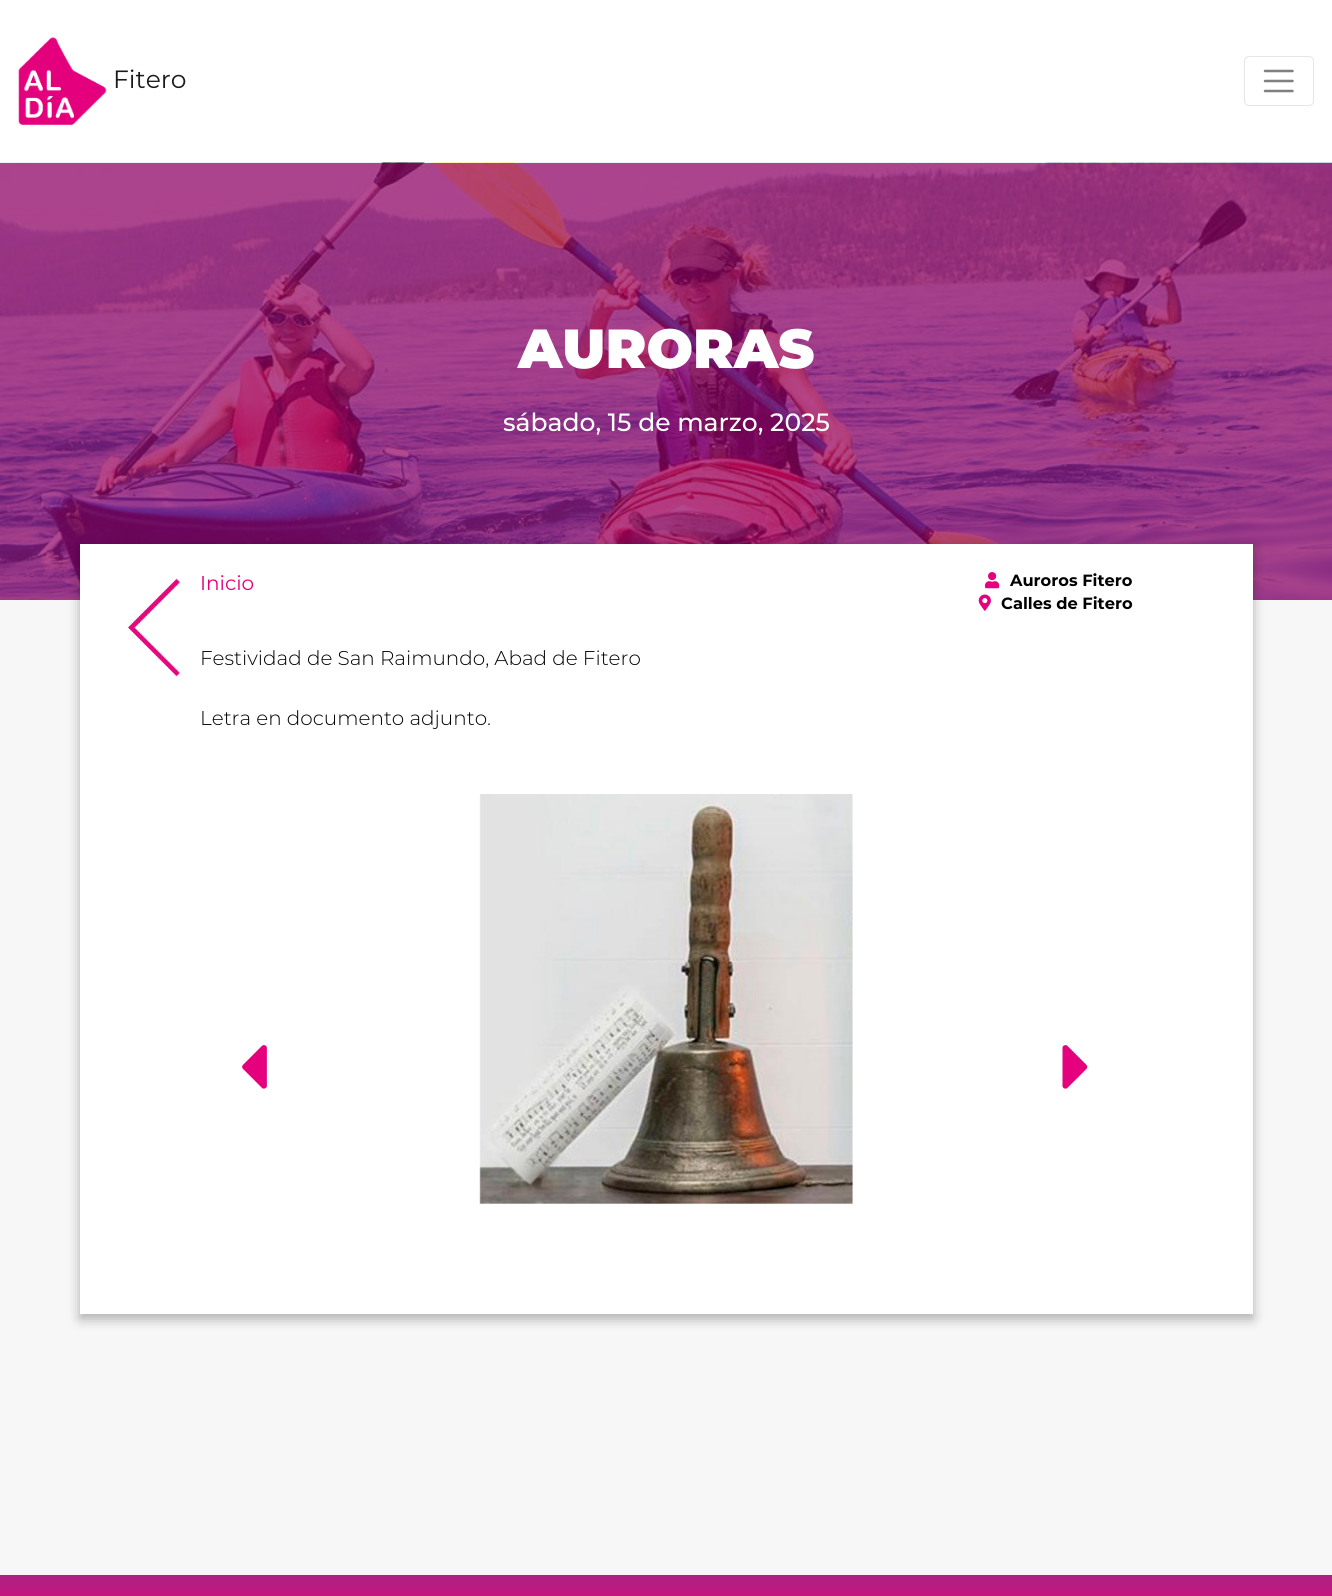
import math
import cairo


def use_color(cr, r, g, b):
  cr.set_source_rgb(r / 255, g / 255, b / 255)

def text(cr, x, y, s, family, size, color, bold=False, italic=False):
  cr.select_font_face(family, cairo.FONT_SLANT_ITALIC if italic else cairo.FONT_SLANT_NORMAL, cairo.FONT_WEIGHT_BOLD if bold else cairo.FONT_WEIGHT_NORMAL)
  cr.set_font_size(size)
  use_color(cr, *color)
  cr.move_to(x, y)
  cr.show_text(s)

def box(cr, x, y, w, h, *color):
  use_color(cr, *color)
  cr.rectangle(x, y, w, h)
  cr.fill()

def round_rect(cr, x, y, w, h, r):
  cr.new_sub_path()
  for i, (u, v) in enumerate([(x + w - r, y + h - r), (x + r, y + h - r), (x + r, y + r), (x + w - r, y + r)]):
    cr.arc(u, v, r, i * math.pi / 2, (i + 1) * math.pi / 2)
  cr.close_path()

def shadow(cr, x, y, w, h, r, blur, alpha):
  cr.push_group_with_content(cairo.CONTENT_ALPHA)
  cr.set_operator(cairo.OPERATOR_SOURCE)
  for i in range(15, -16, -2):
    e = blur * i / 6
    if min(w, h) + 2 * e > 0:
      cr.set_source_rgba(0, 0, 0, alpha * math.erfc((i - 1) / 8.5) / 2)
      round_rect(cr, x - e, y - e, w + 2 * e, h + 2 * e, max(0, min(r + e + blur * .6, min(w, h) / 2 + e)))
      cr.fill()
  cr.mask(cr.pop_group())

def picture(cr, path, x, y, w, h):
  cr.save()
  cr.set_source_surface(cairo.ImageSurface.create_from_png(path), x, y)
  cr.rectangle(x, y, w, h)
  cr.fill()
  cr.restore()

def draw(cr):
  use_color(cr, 247, 247, 247)
  cr.paint()
  box(cr, 0, 0, 1332, 163, 255, 255, 255)
  picture(cr, "img_01.png", 18, 37, 89, 88)
  round_rect(cr, 1244.5, 56.5, 69, 49, 4.5)
  use_color(cr, 230, 230, 230)
  cr.set_line_width(1)
  cr.stroke()
  cr.new_path()
  cr.move_to(1265, 71)
  cr.line_to(1292.5, 71)
  cr.move_to(1265, 81)
  cr.line_to(1292.5, 81)
  cr.move_to(1265, 91)
  cr.line_to(1292.5, 91)
  use_color(cr, 128, 128, 128)
  cr.set_line_width(2.5)
  cr.set_line_cap(cairo.LINE_CAP_ROUND)
  cr.stroke()
  picture(cr, "img_02.png", 0, 162, 1332, 438)
  use_color(cr, 0, 0, 0)
  shadow(cr, 80, 549, 1173, 770, 0, 6, 0.3)
  box(cr, 80, 544, 1173, 770, 255, 255, 255)
  picture(cr, "img_03.png", 128, 578, 52, 99)
  picture(cr, "img_04.png", 985, 572, 15, 17)
  picture(cr, "img_05.png", 978, 594, 13, 17)
  picture(cr, "img_06.png", 242, 1045, 25, 44)
  picture(cr, "img_07.png", 479, 794, 374, 410)
  picture(cr, "img_08.png", 1062, 1045, 26, 44)
  gradient = cairo.LinearGradient(666, 1575, 666, 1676)
  gradient.add_color_stop_rgba(0, 0.675, 0.129, 0.506, 1)
  gradient.add_color_stop_rgba(0.5, 0.894, 0.031, 0.49, 1)
  gradient.add_color_stop_rgba(1, 0.894, 0.035, 0.49, 1)
  cr.set_source(gradient)
  cr.rectangle(0, 1575, 1332, 21)
  cr.fill()
  text(cr, 113, 88, "Fitero", "Montserrat", 25, (26, 26, 26))
  text(cr, 518, 368, "AURORAS", "Montserrat Black", 55, (255, 255, 255))
  text(cr, 503, 431, "sábado, 15 de marzo, 2025", "Montserrat Medium", 25, (255, 255, 255))
  text(cr, 200, 590, "Inicio", "Montserrat", 20, (229, 0, 125))
  text(cr, 1010, 586, "Auroros Fitero", "Montserrat", 16.25, (0, 0, 0), bold=True)
  text(cr, 1001, 609, "Calles de Fitero", "Montserrat", 16.25, (0, 0, 0), bold=True)
  text(cr, 200, 665, "Festividad de San Raimundo, Abad de Fitero", "Montserrat Light", 20, (0, 0, 0))
  text(cr, 200, 725, "Letra en documento adjunto.", "Montserrat Light", 20, (0, 0, 0))


surface = cairo.ImageSurface(cairo.FORMAT_RGB24, 1332, 1596)
cr = cairo.Context(surface)
options = cairo.FontOptions()
options.set_hint_metrics(cairo.HINT_METRICS_OFF)
options.set_hint_style(cairo.HINT_STYLE_NONE)
cr.set_font_options(options)
cr.set_miter_limit(4)
draw(cr)
surface.write_to_png("out.png")
